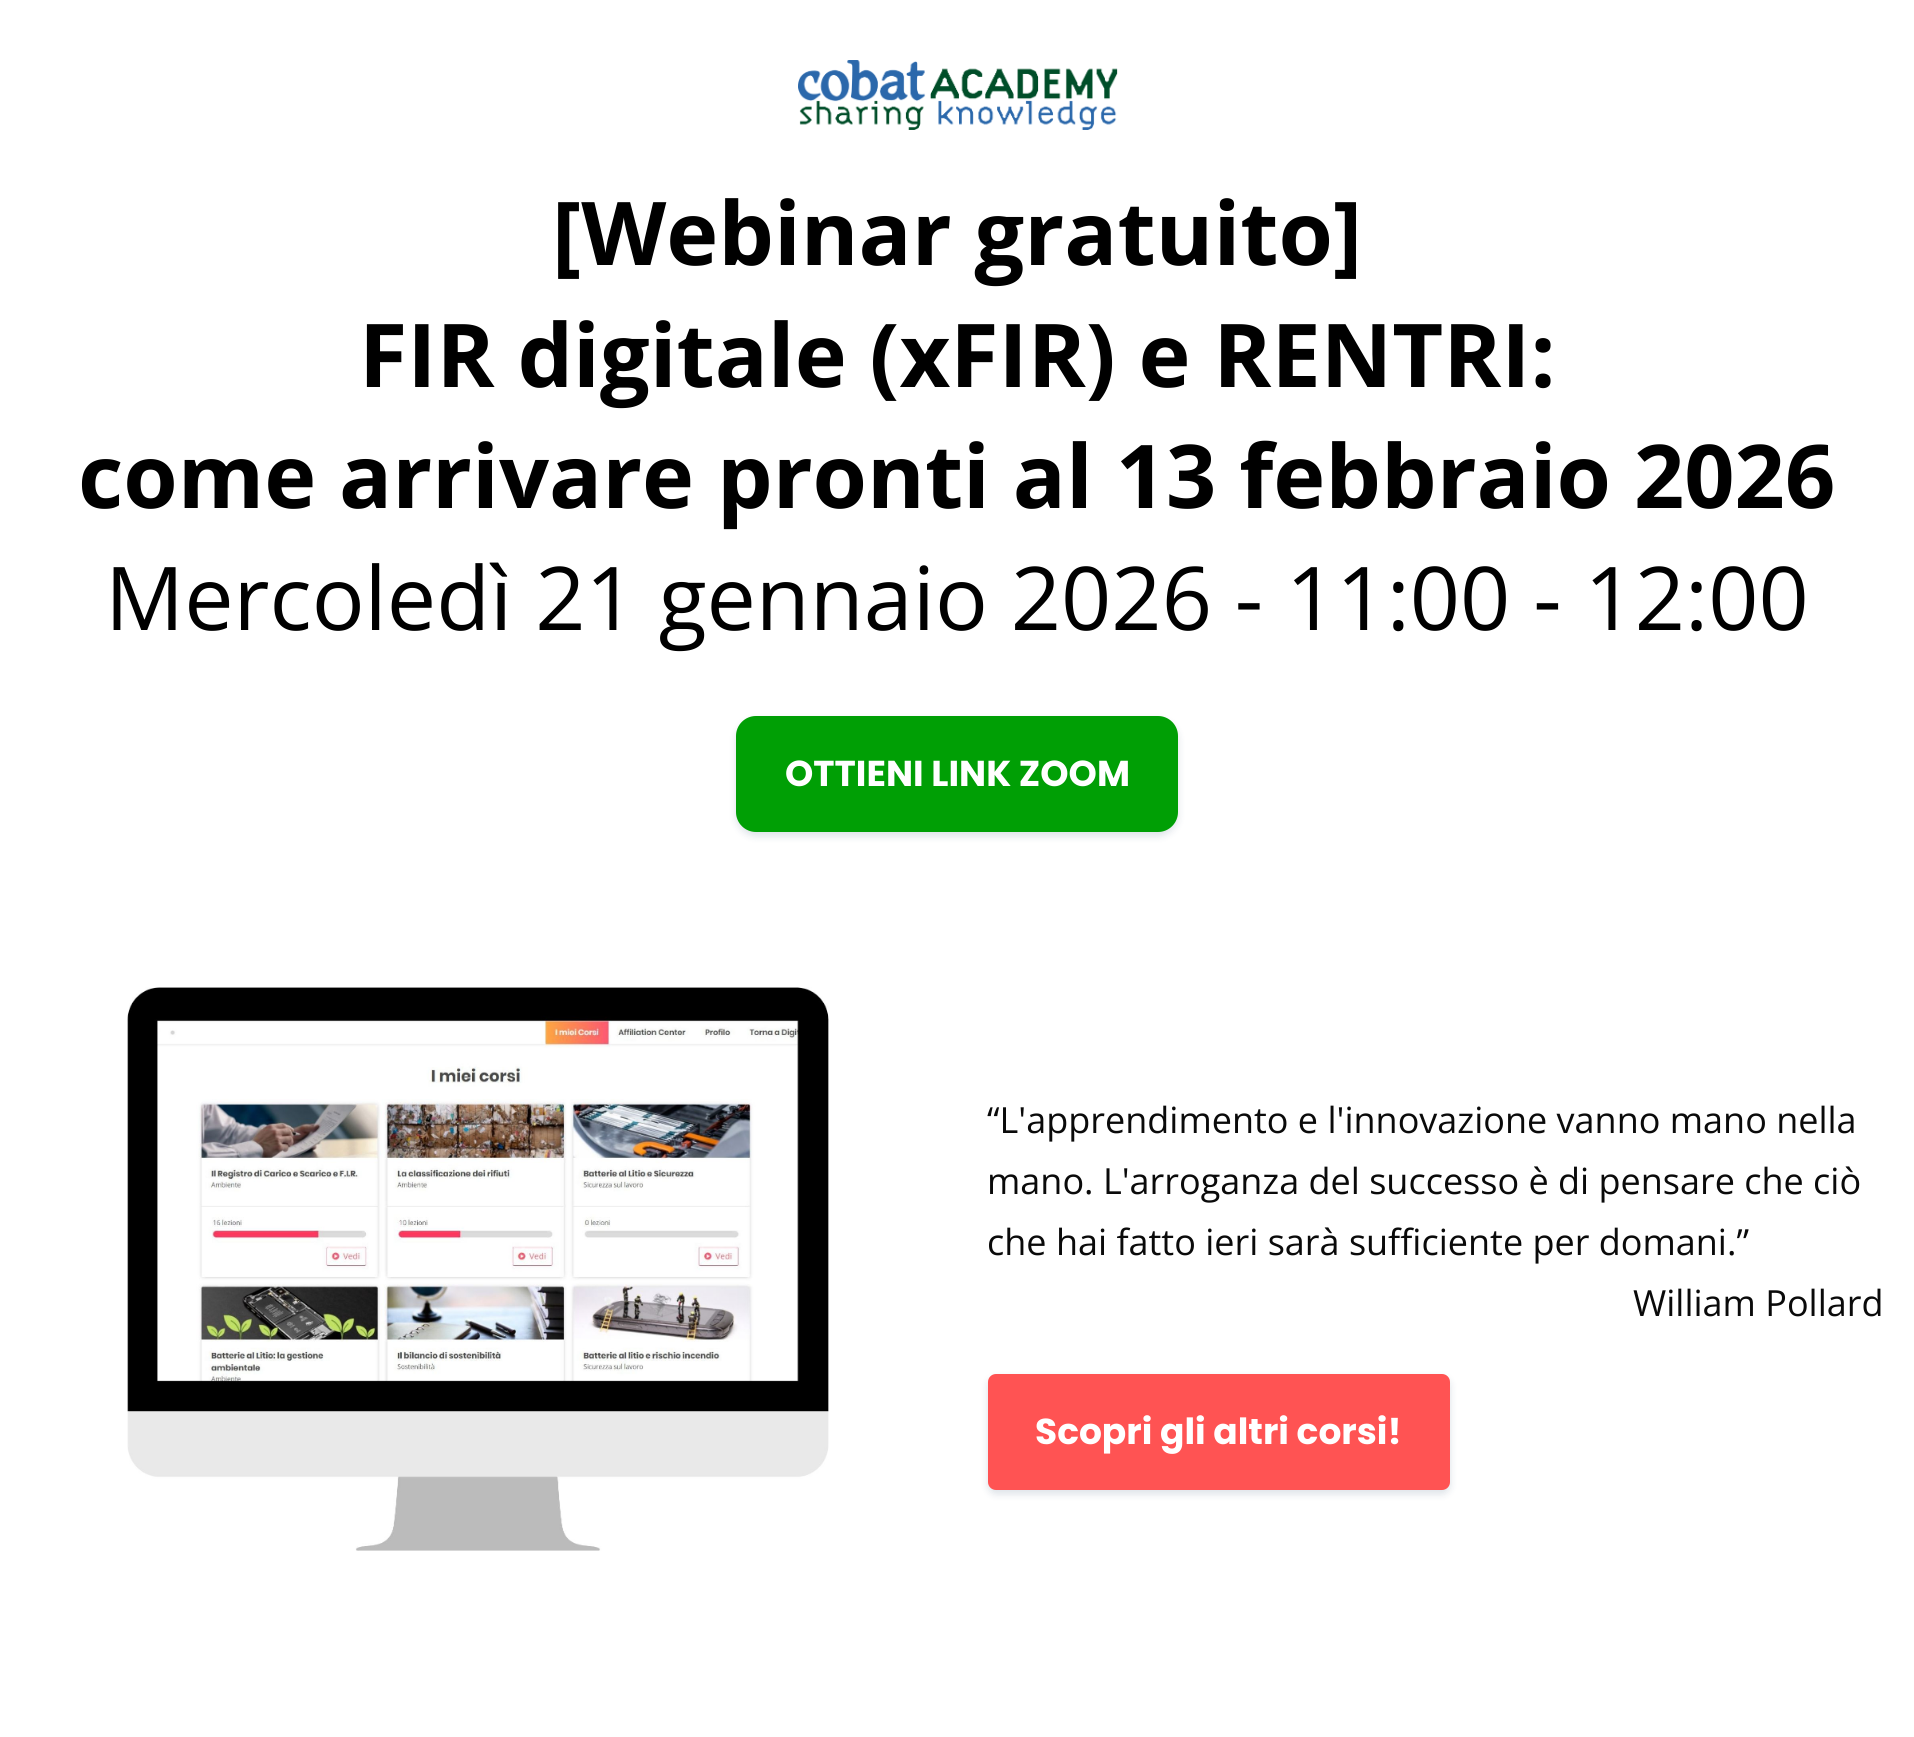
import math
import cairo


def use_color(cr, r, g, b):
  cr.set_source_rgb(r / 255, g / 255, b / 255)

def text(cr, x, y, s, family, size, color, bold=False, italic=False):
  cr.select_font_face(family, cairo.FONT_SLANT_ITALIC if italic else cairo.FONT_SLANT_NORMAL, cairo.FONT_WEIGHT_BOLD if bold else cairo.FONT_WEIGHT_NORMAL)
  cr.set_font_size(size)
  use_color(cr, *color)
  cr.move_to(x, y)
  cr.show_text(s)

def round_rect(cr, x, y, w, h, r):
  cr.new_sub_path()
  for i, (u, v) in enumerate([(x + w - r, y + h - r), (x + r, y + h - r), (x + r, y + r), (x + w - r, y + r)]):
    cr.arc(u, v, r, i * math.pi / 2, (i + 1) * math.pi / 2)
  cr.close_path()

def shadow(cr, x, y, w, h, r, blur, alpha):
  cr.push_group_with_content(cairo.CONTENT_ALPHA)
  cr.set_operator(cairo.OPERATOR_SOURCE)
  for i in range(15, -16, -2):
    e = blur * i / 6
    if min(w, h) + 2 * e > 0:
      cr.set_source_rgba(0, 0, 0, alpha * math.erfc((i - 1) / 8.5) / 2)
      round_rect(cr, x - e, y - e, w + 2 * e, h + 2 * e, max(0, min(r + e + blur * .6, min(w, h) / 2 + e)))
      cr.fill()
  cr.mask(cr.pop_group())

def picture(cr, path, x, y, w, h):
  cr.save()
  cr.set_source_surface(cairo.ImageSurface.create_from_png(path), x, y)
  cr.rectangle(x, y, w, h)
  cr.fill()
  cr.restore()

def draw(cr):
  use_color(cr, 255, 255, 255)
  cr.paint()
  picture(cr, "img_01.png", 798, 60, 320, 70)
  use_color(cr, 24, 61, 99)
  shadow(cr, 736, 720, 442, 116, 20, 4, 0.15)
  use_color(cr, 0, 159, 5)
  round_rect(cr, 736, 716, 442, 116, 20)
  cr.fill()
  picture(cr, "img_02.png", 127, 987, 702, 564)
  use_color(cr, 24, 61, 99)
  shadow(cr, 988, 1378, 462, 116, 8, 4, 0.15)
  use_color(cr, 255, 83, 83)
  round_rect(cr, 988, 1374, 462, 116, 8)
  cr.fill()
  text(cr, 552, 265, "[Webinar gratuito]", "Open Sans", 88, (0, 0, 0), bold=True)
  text(cr, 359, 387, "FIR digitale (xFIR) e RENTRI:", "Open Sans", 88, (0, 0, 0), bold=True)
  text(cr, 78, 508, "come arrivare pronti al 13 febbraio 2026", "Open Sans", 88, (0, 0, 0), bold=True)
  text(cr, 105, 630, "Mercoledì 21 gennaio 2026 - 11:00 - 12:00", "Open Sans", 88, (0, 0, 0))
  text(cr, 785, 786, "OTTIENI LINK ZOOM", "Poppins", 36, (255, 255, 255), bold=True)
  text(cr, 987, 1133, "“L'apprendimento e l'innovazione vanno mano nella", "Open Sans", 36, (10, 10, 10))
  text(cr, 987, 1194, "mano. L'arroganza del successo è di pensare che ciò", "Open Sans", 36, (10, 10, 10))
  text(cr, 987, 1255, "che hai fatto ieri sarà sufficiente per domani.”", "Open Sans", 36, (10, 10, 10))
  text(cr, 1633, 1316, "William Pollard", "Open Sans", 36, (10, 10, 10))
  text(cr, 1035, 1444, "Scopri gli altri corsi!", "Poppins", 36, (255, 255, 255), bold=True)


surface = cairo.ImageSurface(cairo.FORMAT_RGB24, 1914, 1737)
cr = cairo.Context(surface)
options = cairo.FontOptions()
options.set_hint_metrics(cairo.HINT_METRICS_OFF)
options.set_hint_style(cairo.HINT_STYLE_NONE)
cr.set_font_options(options)
cr.set_miter_limit(4)
draw(cr)
surface.write_to_png("out.png")
